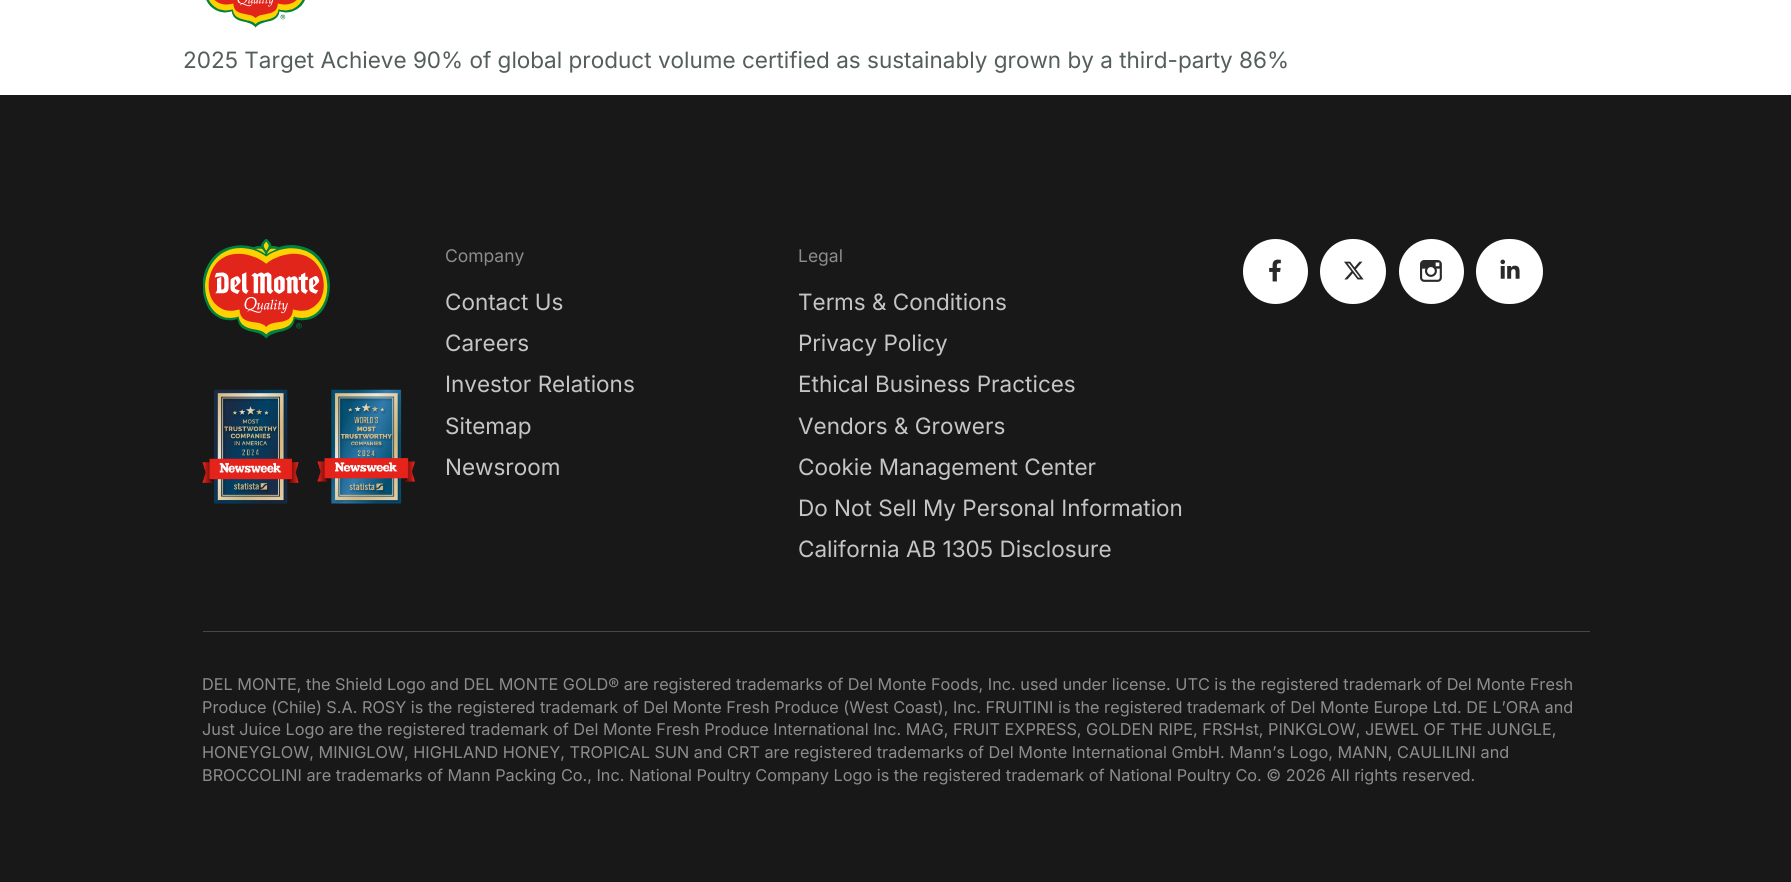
import math
import cairo


def use_color(cr, r, g, b):
  cr.set_source_rgb(r / 255, g / 255, b / 255)

def text(cr, x, y, s, family, size, color, bold=False, italic=False):
  cr.select_font_face(family, cairo.FONT_SLANT_ITALIC if italic else cairo.FONT_SLANT_NORMAL, cairo.FONT_WEIGHT_BOLD if bold else cairo.FONT_WEIGHT_NORMAL)
  cr.set_font_size(size)
  use_color(cr, *color)
  cr.move_to(x, y)
  cr.show_text(s)

def box(cr, x, y, w, h, *color):
  use_color(cr, *color)
  cr.rectangle(x, y, w, h)
  cr.fill()

def round_rect(cr, x, y, w, h, r):
  cr.new_sub_path()
  for i, (u, v) in enumerate([(x + w - r, y + h - r), (x + r, y + h - r), (x + r, y + r), (x + w - r, y + r)]):
    cr.arc(u, v, r, i * math.pi / 2, (i + 1) * math.pi / 2)
  cr.close_path()

def picture(cr, path, x, y, w, h):
  cr.save()
  cr.set_source_surface(cairo.ImageSurface.create_from_png(path), x, y)
  cr.rectangle(x, y, w, h)
  cr.fill()
  cr.restore()

def draw(cr):
  use_color(cr, 255, 255, 255)
  cr.paint()
  picture(cr, "img_01.png", 206, 0, 99, 28)
  box(cr, 0, 95, 1791, 787, 24, 24, 24)
  picture(cr, "img_02.png", 203, 239, 127, 100)
  picture(cr, "img_03.png", 202, 389, 97, 115)
  picture(cr, "img_04.png", 317, 389, 98, 115)
  use_color(cr, 255, 255, 255)
  cr.arc(1275.5, 271.5, 32.5, 0, 2 * math.pi)
  cr.fill()
  picture(cr, "img_05.png", 1269, 259, 12, 23)
  round_rect(cr, 1320, 239, 66, 65, 32.5)
  cr.fill()
  picture(cr, "img_06.png", 1344, 261, 20, 19)
  cr.arc(1431.5, 271.5, 32.5, 0, 2 * math.pi)
  cr.fill()
  picture(cr, "img_07.png", 1420, 260, 22, 22)
  round_rect(cr, 1476, 239, 67, 65, 32.5)
  cr.fill()
  picture(cr, "img_08.png", 1500, 259, 20, 20)
  box(cr, 203, 631, 1387, 1, 70, 70, 70)
  text(cr, 183, 68, "2025 Target Achieve 90% of global product volume certified as sustainably grown by a third-party 86%", "Inter", 22.5, (84, 94, 91))
  text(cr, 445, 262, "Company", "Inter", 17.5, (140, 140, 140))
  text(cr, 445, 310, "Contact Us", "Inter", 22.5, (197, 197, 197))
  text(cr, 445, 351, "Careers", "Inter", 22.5, (197, 197, 197))
  text(cr, 445, 392, "Investor Relations", "Inter", 22.5, (197, 197, 197))
  text(cr, 445, 434, "Sitemap", "Inter", 22.5, (197, 197, 197))
  text(cr, 445, 475, "Newsroom", "Inter", 22.5, (197, 197, 197))
  text(cr, 798, 262, "Legal", "Inter", 17.5, (140, 140, 140))
  text(cr, 798, 310, "Terms & Conditions", "Inter", 22.5, (197, 197, 197))
  text(cr, 798, 351, "Privacy Policy", "Inter", 22.5, (197, 197, 197))
  text(cr, 798, 392, "Ethical Business Practices", "Inter", 22.5, (197, 197, 197))
  text(cr, 798, 434, "Vendors & Growers", "Inter", 22.5, (197, 197, 197))
  text(cr, 798, 475, "Cookie Management Center", "Inter", 22.5, (197, 197, 197))
  text(cr, 798, 516, "Do Not Sell My Personal Information", "Inter", 22.5, (197, 197, 197))
  text(cr, 798, 557, "California AB 1305 Disclosure", "Inter", 22.5, (197, 197, 197))
  text(cr, 202, 690, "DEL MONTE, the Shield Logo and DEL MONTE GOLD® are registered trademarks of Del Monte Foods, Inc. used under license. UTC is the registered trademark of Del Monte Fresh", "Inter", 16.25, (140, 140, 140))
  text(cr, 202, 713, "Produce (Chile) S.A. ROSY is the registered trademark of Del Monte Fresh Produce (West Coast), Inc. FRUITINI is the registered trademark of Del Monte Europe Ltd. DE L’ORA and", "Inter", 16.25, (140, 140, 140))
  text(cr, 202, 735, "Just Juice Logo are the registered trademark of Del Monte Fresh Produce International Inc. MAG, FRUIT EXPRESS, GOLDEN RIPE, FRSHst, PINKGLOW, JEWEL OF THE JUNGLE,", "Inter", 16.25, (140, 140, 140))
  text(cr, 202, 758, "HONEYGLOW, MINIGLOW, HIGHLAND HONEY, TROPICAL SUN and CRT are registered trademarks of Del Monte International GmbH. Mann’s Logo, MANN, CAULILINI and", "Inter", 16.25, (140, 140, 140))
  text(cr, 202, 781, "BROCCOLINI are trademarks of Mann Packing Co., Inc. National Poultry Company Logo is the registered trademark of National Poultry Co. © 2026 All rights reserved.", "Inter", 16.25, (140, 140, 140))


surface = cairo.ImageSurface(cairo.FORMAT_RGB24, 1791, 882)
cr = cairo.Context(surface)
options = cairo.FontOptions()
options.set_hint_metrics(cairo.HINT_METRICS_OFF)
options.set_hint_style(cairo.HINT_STYLE_NONE)
cr.set_font_options(options)
cr.set_miter_limit(4)
draw(cr)
surface.write_to_png("out.png")
